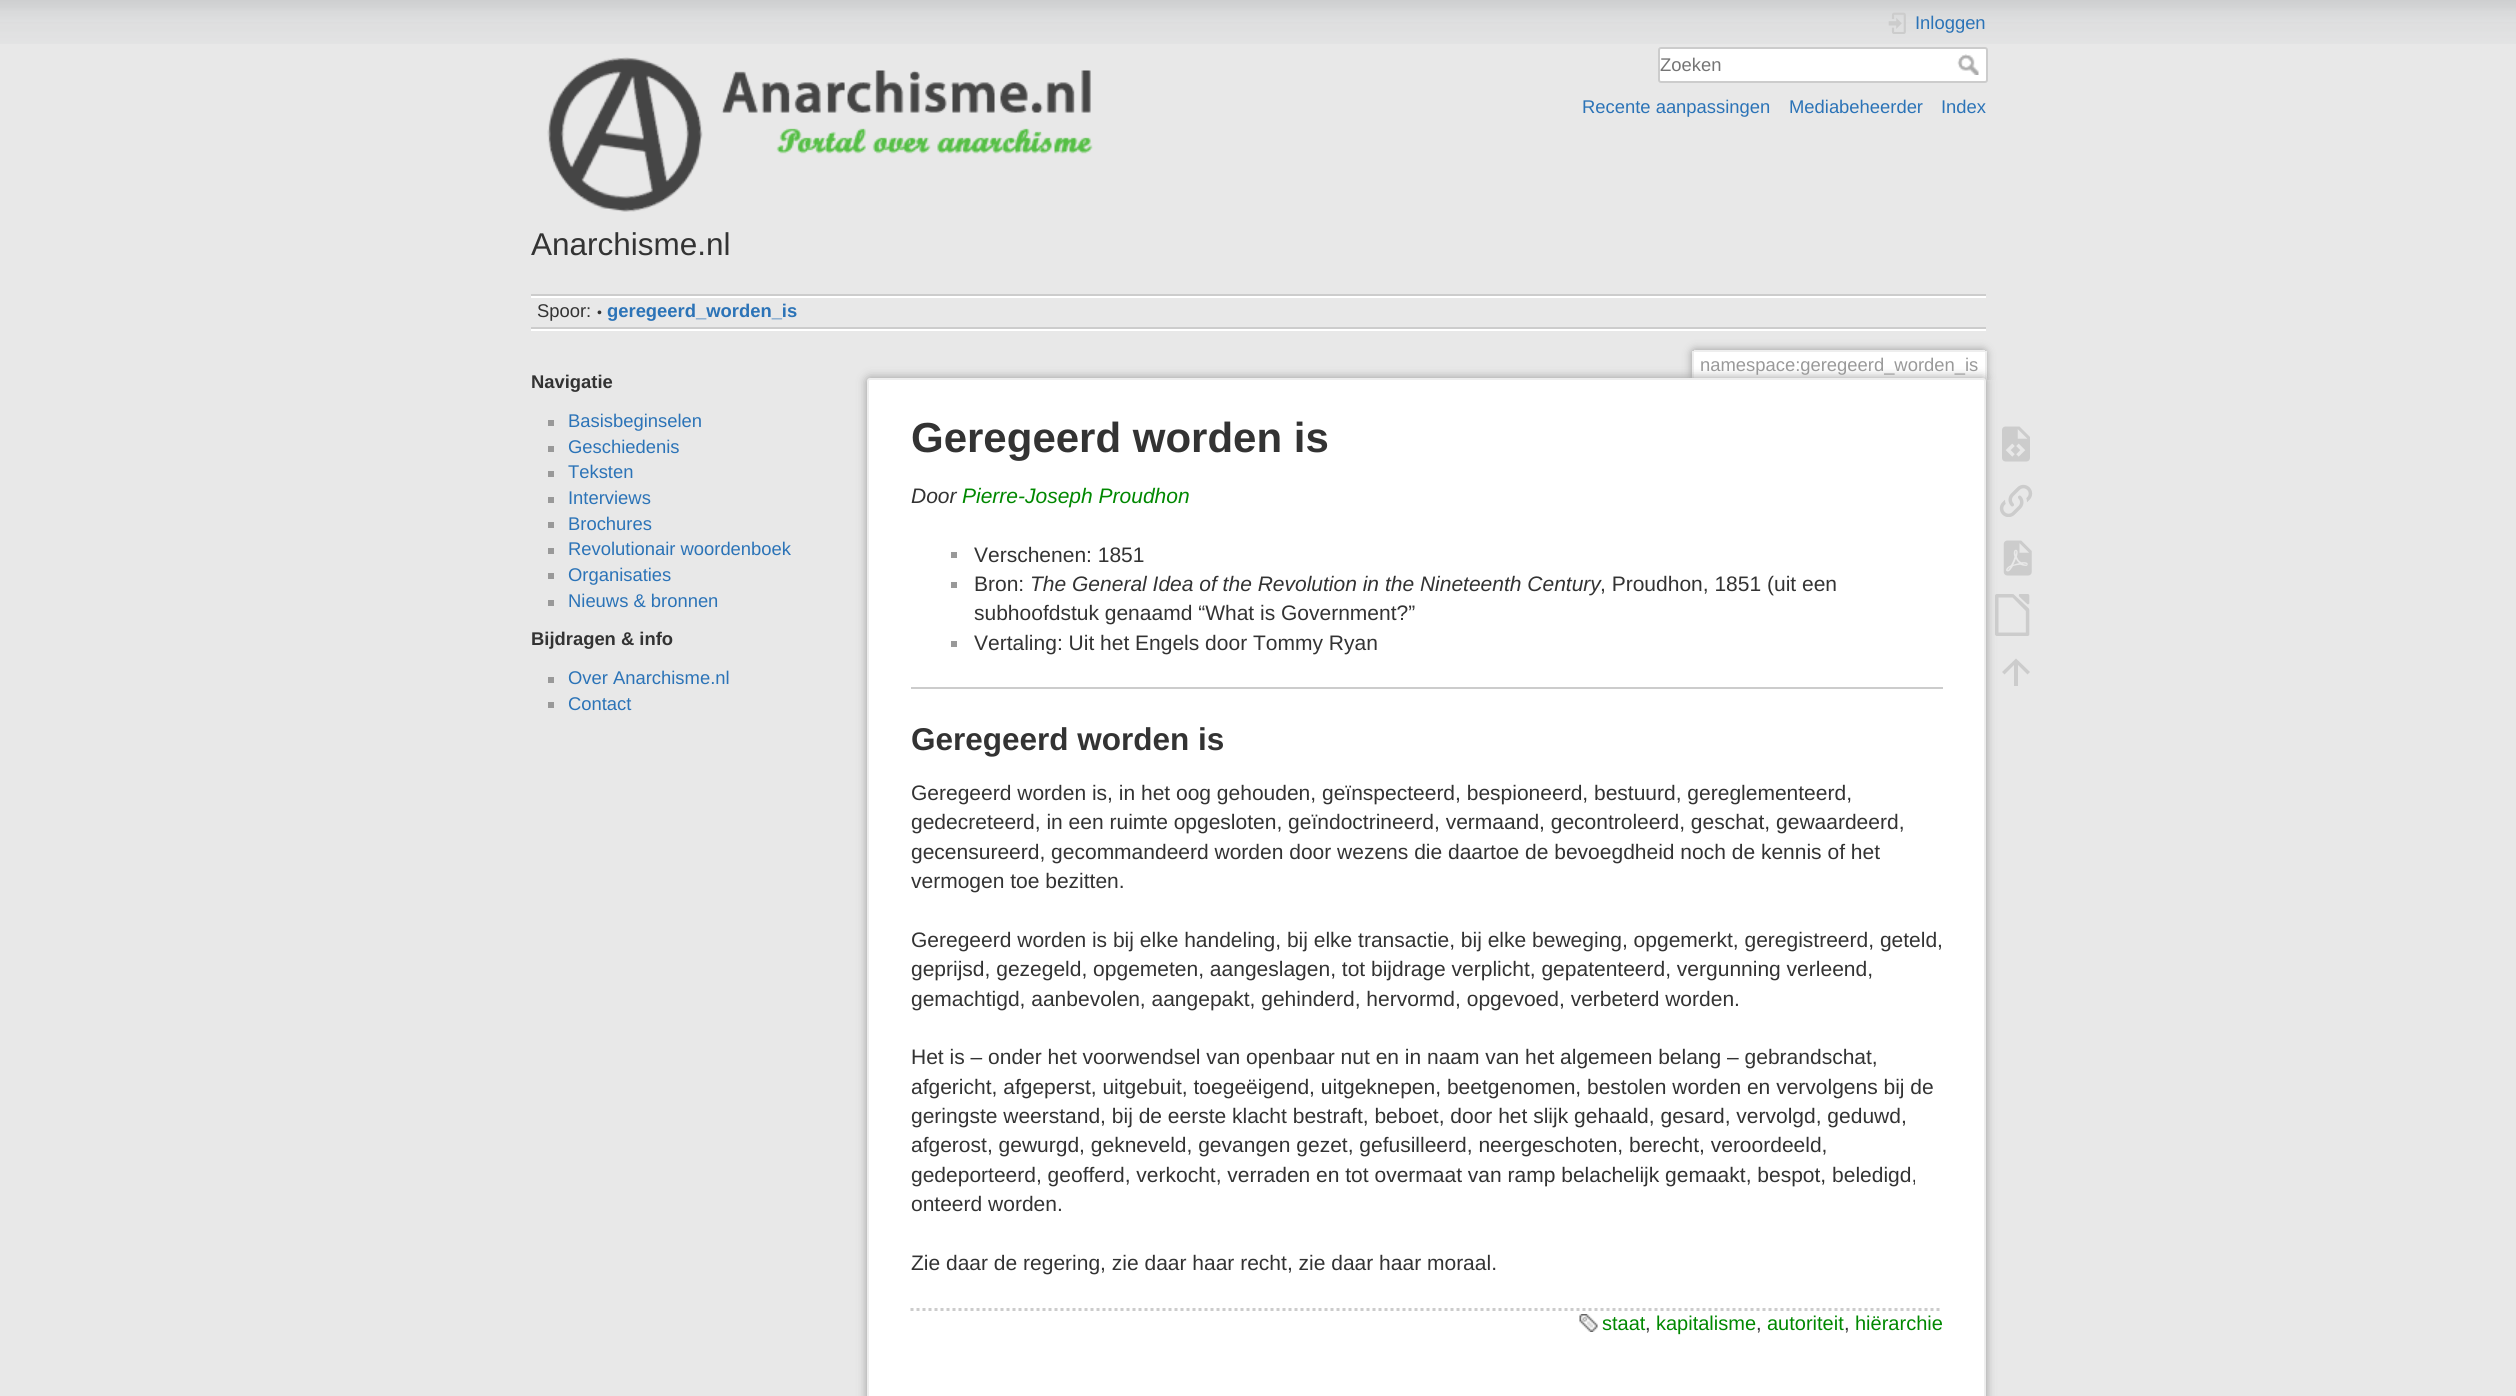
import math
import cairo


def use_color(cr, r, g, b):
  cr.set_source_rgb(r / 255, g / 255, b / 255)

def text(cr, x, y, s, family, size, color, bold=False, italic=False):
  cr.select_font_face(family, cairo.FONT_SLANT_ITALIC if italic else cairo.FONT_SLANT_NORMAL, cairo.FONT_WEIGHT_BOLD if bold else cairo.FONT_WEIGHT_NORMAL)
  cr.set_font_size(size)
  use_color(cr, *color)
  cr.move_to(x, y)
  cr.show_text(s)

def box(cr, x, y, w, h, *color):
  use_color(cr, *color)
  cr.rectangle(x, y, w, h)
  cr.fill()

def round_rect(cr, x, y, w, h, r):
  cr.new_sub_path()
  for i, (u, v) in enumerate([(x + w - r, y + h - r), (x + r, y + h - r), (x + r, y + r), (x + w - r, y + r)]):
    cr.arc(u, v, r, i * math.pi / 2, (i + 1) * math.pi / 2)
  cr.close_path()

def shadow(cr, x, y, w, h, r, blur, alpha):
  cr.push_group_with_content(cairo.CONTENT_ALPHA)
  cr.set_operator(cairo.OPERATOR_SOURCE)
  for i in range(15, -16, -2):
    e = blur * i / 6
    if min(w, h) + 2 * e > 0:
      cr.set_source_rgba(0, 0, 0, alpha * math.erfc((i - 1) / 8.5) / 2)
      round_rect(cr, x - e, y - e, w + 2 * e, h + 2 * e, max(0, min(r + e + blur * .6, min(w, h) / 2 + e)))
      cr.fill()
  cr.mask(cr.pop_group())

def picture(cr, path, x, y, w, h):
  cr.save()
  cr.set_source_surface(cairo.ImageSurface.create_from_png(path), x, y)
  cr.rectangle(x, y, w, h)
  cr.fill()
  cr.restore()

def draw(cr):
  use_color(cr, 232, 232, 232)
  cr.paint()
  picture(cr, "img_01.png", 0, 0, 2516, 44)
  picture(cr, "img_02.png", 1888, 12, 18, 22)
  use_color(cr, 255, 255, 255)
  round_rect(cr, 1659, 48, 328, 34, 2)
  cr.fill_preserve()
  use_color(cr, 204, 204, 204)
  cr.stroke()
  picture(cr, "img_03.png", 1957, 54, 22, 21)
  picture(cr, "img_04.png", 547, 57, 546, 155)
  box(cr, 531, 294, 1455, 2, 204, 204, 204)
  box(cr, 531, 329, 1455, 2, 255, 255, 255)
  box(cr, 531, 296, 1455, 2, 255, 255, 255)
  box(cr, 531, 327, 1455, 2, 204, 204, 204)
  box(cr, 548, 420, 6, 6, 153, 153, 153)
  box(cr, 548, 446, 6, 6, 153, 153, 153)
  box(cr, 548, 471, 6, 6, 153, 153, 153)
  box(cr, 548, 497, 6, 6, 153, 153, 153)
  box(cr, 548, 522, 6, 6, 153, 153, 153)
  box(cr, 548, 548, 6, 6, 153, 153, 153)
  box(cr, 548, 573, 6, 6, 153, 153, 153)
  box(cr, 548, 600, 6, 6, 153, 153, 153)
  box(cr, 548, 677, 6, 6, 153, 153, 153)
  box(cr, 548, 702, 6, 6, 153, 153, 153)
  cr.save()
  cr.rectangle(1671, 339, 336, 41)
  cr.clip()
  use_color(cr, 153, 153, 153)
  shadow(cr, 1692, 350, 294, 30, 3, 4.5, 1)
  cr.restore()
  box(cr, 1694, 352, 291, 27, 255, 255, 255)
  box(cr, 1694, 350, 291, 2, 238, 238, 238)
  box(cr, 1985, 351, 2, 29, 238, 238, 238)
  box(cr, 1692, 351, 2, 29, 238, 238, 238)
  use_color(cr, 153, 153, 153)
  shadow(cr, 867, 378, 1119, 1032, 3, 5, 1)
  use_color(cr, 255, 255, 255)
  round_rect(cr, 868, 379, 1117, 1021, 2)
  cr.fill_preserve()
  use_color(cr, 238, 238, 238)
  cr.stroke()
  box(cr, 951, 552, 6, 6, 153, 153, 153)
  box(cr, 951, 582, 6, 6, 153, 153, 153)
  box(cr, 951, 641, 6, 6, 153, 153, 153)
  box(cr, 911, 687, 1032, 2, 204, 204, 204)
  cr.new_path()
  cr.move_to(910.5, 1309.5)
  cr.line_to(1942.5, 1309.5)
  cr.set_line_width(3)
  cr.set_dash([3, 3])
  cr.stroke()
  picture(cr, "img_05.png", 1579, 1314, 19, 18)
  picture(cr, "img_06.png", 2002, 426, 28, 36)
  picture(cr, "img_07.png", 1999, 484, 34, 33)
  picture(cr, "img_08.png", 2003, 540, 29, 36)
  picture(cr, "img_09.png", 1995, 594, 35, 42)
  cr.new_path()
  cr.move_to(2018, 686)
  cr.line_to(2014, 686)
  cr.line_to(2014, 665)
  cr.line_to(2004.5, 674.5)
  cr.line_to(2002, 672)
  cr.line_to(2016, 658.5)
  cr.line_to(2030, 672)
  cr.line_to(2027.5, 674.5)
  cr.line_to(2018, 665)
  cr.close_path()
  cr.fill()
  text(cr, 1915, 29, "Inloggen", "Liberation Sans", 18.4, (43, 115, 183))
  text(cr, 1660, 71, "Zoeken", "Liberation Sans", 18.4, (117, 117, 117))
  text(cr, 1582, 113, "Recente aanpassingen", "Liberation Sans", 18.4, (43, 115, 183))
  text(cr, 1789, 113, "Mediabeheerder", "Liberation Sans", 18.4, (43, 115, 183))
  text(cr, 1941, 113, "Index", "Liberation Sans", 18.4, (43, 115, 183))
  text(cr, 531, 255, "Anarchisme.nl", "Liberation Sans", 31.5, (51, 51, 51))
  text(cr, 537, 317, "Spoor:", "Liberation Sans", 18.4, (51, 51, 51))
  text(cr, 597, 317, "•", "Liberation Sans", 14, (51, 51, 51))
  text(cr, 607, 317, "geregeerd_worden_is", "Liberation Sans", 18.4, (43, 115, 183), bold=True)
  text(cr, 531, 388, "Navigatie", "Liberation Sans", 18.4, (51, 51, 51), bold=True)
  text(cr, 568, 427, "Basisbeginselen", "Liberation Sans", 18.4, (43, 115, 183))
  text(cr, 568, 453, "Geschiedenis", "Liberation Sans", 18.4, (43, 115, 183))
  text(cr, 568, 478, "Teksten", "Liberation Sans", 18.4, (43, 115, 183))
  text(cr, 568, 504, "Interviews", "Liberation Sans", 18.4, (43, 115, 183))
  text(cr, 568, 530, "Brochures", "Liberation Sans", 18.4, (43, 115, 183))
  text(cr, 568, 555, "Revolutionair woordenboek", "Liberation Sans", 18.4, (43, 115, 183))
  text(cr, 568, 581, "Organisaties", "Liberation Sans", 18.4, (43, 115, 183))
  text(cr, 568, 607, "Nieuws & bronnen", "Liberation Sans", 18.4, (43, 115, 183))
  text(cr, 531, 645, "Bijdragen & info", "Liberation Sans", 18.4, (51, 51, 51), bold=True)
  text(cr, 568, 684, "Over Anarchisme.nl", "Liberation Sans", 18.4, (43, 115, 183))
  text(cr, 568, 710, "Contact", "Liberation Sans", 18.4, (43, 115, 183))
  text(cr, 1700, 371, "namespace:geregeerd_worden_is", "Liberation Sans", 18.4, (153, 153, 153))
  text(cr, 911, 452, "Geregeerd worden is", "Liberation Sans", 42, (51, 51, 51), bold=True)
  text(cr, 911, 503, "Door", "Liberation Sans", 21, (51, 51, 51), italic=True)
  text(cr, 962, 503, "Pierre-Joseph Proudhon", "Liberation Sans", 21, (0, 136, 0), italic=True)
  text(cr, 974, 562, "Verschenen: 1851", "Liberation Sans", 21, (51, 51, 51))
  text(cr, 974, 591, "Bron:", "Liberation Sans", 21, (51, 51, 51))
  text(cr, 1030, 591, "The General Idea of the Revolution in the Nineteenth Century", "Liberation Sans", 21, (51, 51, 51), italic=True)
  text(cr, 1600, 591, ", Proudhon, 1851 (uit een", "Liberation Sans", 21, (51, 51, 51))
  text(cr, 974, 620, "subhoofdstuk genaamd “What is Government?”", "Liberation Sans", 21, (51, 51, 51))
  text(cr, 974, 650, "Vertaling: Uit het Engels door Tommy Ryan", "Liberation Sans", 21, (51, 51, 51))
  text(cr, 911, 750, "Geregeerd worden is", "Liberation Sans", 31.5, (51, 51, 51), bold=True)
  text(cr, 911, 800, "Geregeerd worden is, in het oog gehouden, geïnspecteerd, bespioneerd, bestuurd, gereglementeerd,", "Liberation Sans", 21, (51, 51, 51))
  text(cr, 911, 829, "gedecreteerd, in een ruimte opgesloten, geïndoctrineerd, vermaand, gecontroleerd, geschat, gewaardeerd,", "Liberation Sans", 21, (51, 51, 51))
  text(cr, 911, 859, "gecensureerd, gecommandeerd worden door wezens die daartoe de bevoegdheid noch de kennis of het", "Liberation Sans", 21, (51, 51, 51))
  text(cr, 911, 888, "vermogen toe bezitten.", "Liberation Sans", 21, (51, 51, 51))
  text(cr, 911, 947, "Geregeerd worden is bij elke handeling, bij elke transactie, bij elke beweging, opgemerkt, geregistreerd, geteld,", "Liberation Sans", 21, (51, 51, 51))
  text(cr, 911, 976, "geprijsd, gezegeld, opgemeten, aangeslagen, tot bijdrage verplicht, gepatenteerd, vergunning verleend,", "Liberation Sans", 21, (51, 51, 51))
  text(cr, 911, 1006, "gemachtigd, aanbevolen, aangepakt, gehinderd, hervormd, opgevoed, verbeterd worden.", "Liberation Sans", 21, (51, 51, 51))
  text(cr, 911, 1064, "Het is – onder het voorwendsel van openbaar nut en in naam van het algemeen belang – gebrandschat,", "Liberation Sans", 21, (51, 51, 51))
  text(cr, 911, 1094, "afgericht, afgeperst, uitgebuit, toegeëigend, uitgeknepen, beetgenomen, bestolen worden en vervolgens bij de", "Liberation Sans", 21, (51, 51, 51))
  text(cr, 911, 1123, "geringste weerstand, bij de eerste klacht bestraft, beboet, door het slijk gehaald, gesard, vervolgd, geduwd,", "Liberation Sans", 21, (51, 51, 51))
  text(cr, 911, 1152, "afgerost, gewurgd, gekneveld, gevangen gezet, gefusilleerd, neergeschoten, berecht, veroordeeld,", "Liberation Sans", 21, (51, 51, 51))
  text(cr, 911, 1182, "gedeporteerd, geofferd, verkocht, verraden en tot overmaat van ramp belachelijk gemaakt, bespot, beledigd,", "Liberation Sans", 21, (51, 51, 51))
  text(cr, 911, 1211, "onteerd worden.", "Liberation Sans", 21, (51, 51, 51))
  text(cr, 911, 1270, "Zie daar de regering, zie daar haar recht, zie daar haar moraal.", "Liberation Sans", 21, (51, 51, 51))
  text(cr, 1602, 1330, "staat", "Liberation Sans", 20, (0, 136, 0))
  text(cr, 1645, 1330, ",", "Liberation Sans", 20, (51, 51, 51))
  text(cr, 1656, 1330, "kapitalisme", "Liberation Sans", 20, (0, 136, 0))
  text(cr, 1756, 1330, ",", "Liberation Sans", 20, (51, 51, 51))
  text(cr, 1767, 1330, "autoriteit", "Liberation Sans", 20, (0, 136, 0))
  text(cr, 1844, 1330, ",", "Liberation Sans", 20, (51, 51, 51))
  text(cr, 1855, 1330, "hiërarchie", "Liberation Sans", 20, (0, 136, 0))


surface = cairo.ImageSurface(cairo.FORMAT_RGB24, 2516, 1396)
cr = cairo.Context(surface)
options = cairo.FontOptions()
options.set_hint_metrics(cairo.HINT_METRICS_OFF)
options.set_hint_style(cairo.HINT_STYLE_NONE)
cr.set_font_options(options)
cr.set_miter_limit(4)
draw(cr)
surface.write_to_png("out.png")
